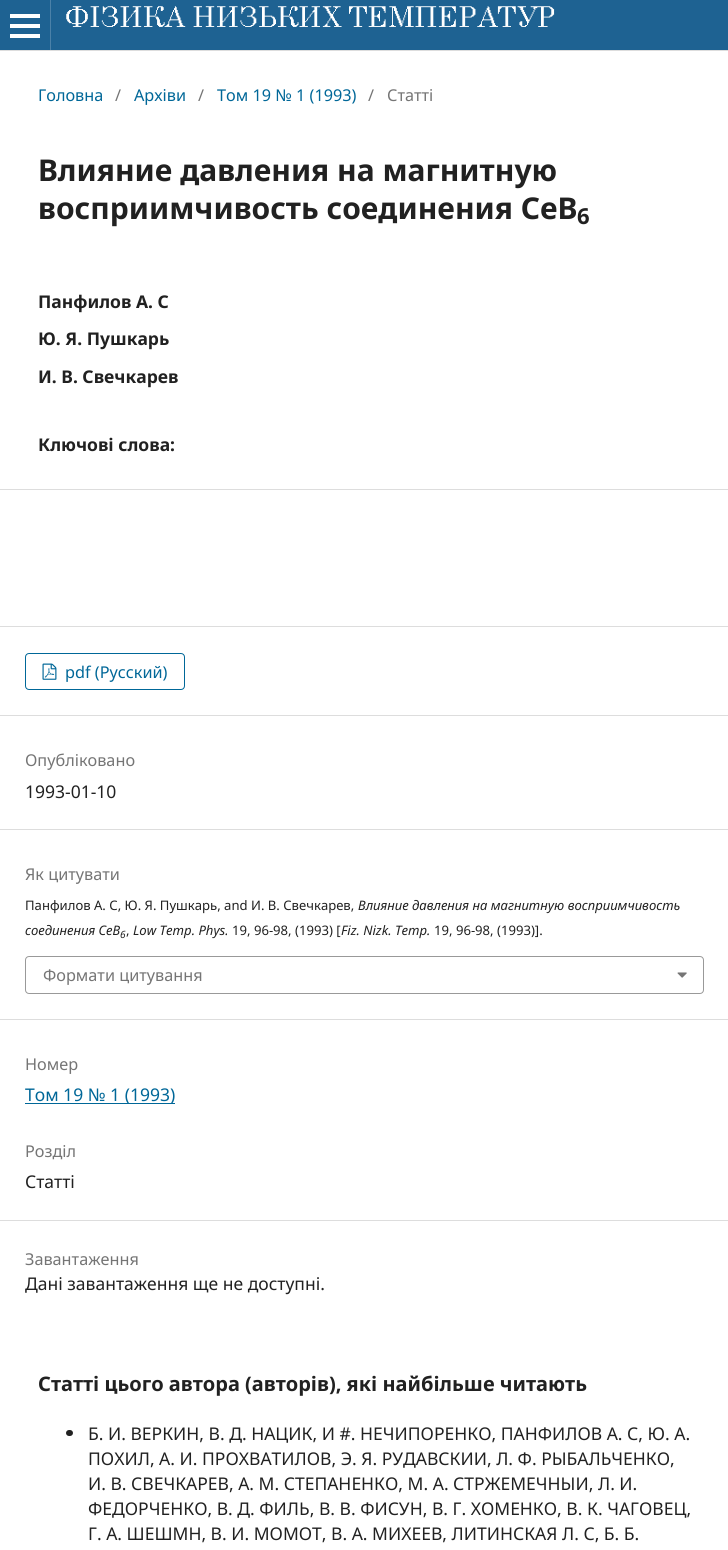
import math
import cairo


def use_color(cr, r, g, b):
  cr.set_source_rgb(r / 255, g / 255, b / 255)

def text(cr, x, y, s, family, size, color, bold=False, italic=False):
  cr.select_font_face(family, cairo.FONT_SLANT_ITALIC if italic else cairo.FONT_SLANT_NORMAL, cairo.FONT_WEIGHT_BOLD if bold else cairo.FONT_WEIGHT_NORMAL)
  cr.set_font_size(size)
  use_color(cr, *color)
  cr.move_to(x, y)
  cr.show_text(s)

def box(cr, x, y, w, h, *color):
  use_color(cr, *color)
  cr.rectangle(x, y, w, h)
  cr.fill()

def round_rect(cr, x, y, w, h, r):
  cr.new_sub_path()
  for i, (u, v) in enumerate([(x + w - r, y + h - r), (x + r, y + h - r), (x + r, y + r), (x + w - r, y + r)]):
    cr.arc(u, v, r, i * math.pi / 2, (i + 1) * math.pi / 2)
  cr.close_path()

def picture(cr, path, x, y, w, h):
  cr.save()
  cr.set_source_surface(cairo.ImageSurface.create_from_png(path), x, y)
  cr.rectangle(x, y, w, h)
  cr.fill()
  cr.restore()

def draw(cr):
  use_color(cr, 255, 255, 255)
  cr.paint()
  box(cr, 0, 0, 728, 50, 30, 98, 146)
  box(cr, 0, 50, 728, 1, 221, 221, 221)
  box(cr, 50, 0, 1, 50, 75, 129, 168)
  box(cr, 10, 34, 30, 4, 255, 255, 255)
  box(cr, 10, 14, 30, 4, 255, 255, 255)
  box(cr, 10, 24, 30, 4, 255, 255, 255)
  picture(cr, "img_01.png", 66, 6, 489, 21)
  box(cr, 0, 489, 728, 1, 221, 221, 221)
  box(cr, 0, 626, 728, 1, 221, 221, 221)
  box(cr, 0, 715, 728, 1, 221, 221, 221)
  round_rect(cr, 25.5, 653.5, 159, 36, 3.5)
  use_color(cr, 0, 103, 152)
  cr.set_line_width(1)
  cr.stroke()
  picture(cr, "img_02.png", 42, 663, 15, 17)
  box(cr, 0, 829, 728, 1, 221, 221, 221)
  box(cr, 0, 1019, 728, 1, 221, 221, 221)
  round_rect(cr, 25.5, 956.5, 678, 37, 3.5)
  use_color(cr, 153, 153, 153)
  cr.stroke()
  picture(cr, "img_03.png", 677, 972, 10, 6)
  box(cr, 0, 1220, 728, 1, 221, 221, 221)
  box(cr, 25, 1103, 150, 1, 0, 103, 152)
  use_color(cr, 33, 33, 33)
  round_rect(cr, 66, 1430, 7, 6, 3)
  cr.fill()
  text(cr, 38, 101, "Головна", "Noto Sans", 16.25, (0, 103, 152))
  text(cr, 115, 101, "/", "Noto Sans", 16.25, (117, 117, 117))
  text(cr, 134, 101, "Архіви", "Noto Sans", 16.25, (0, 103, 152))
  text(cr, 198, 101, "/", "Noto Sans", 16.25, (117, 117, 117))
  text(cr, 217, 101, "Том 19 № 1 (1993)", "Noto Sans", 16.25, (0, 103, 152))
  text(cr, 368, 101, "/", "Noto Sans", 16.25, (117, 117, 117))
  text(cr, 387, 101, "Статті", "Noto Sans", 16.25, (117, 117, 117))
  text(cr, 38, 181, "Влияние давления на магнитную", "Noto Sans", 30, (33, 33, 33), bold=True)
  text(cr, 38, 219, "восприимчивость соединения СеВ", "Noto Sans", 30, (33, 33, 33), bold=True)
  text(cr, 577, 224, "6", "Noto Sans", 22, (33, 33, 33), bold=True)
  text(cr, 38, 308, "Панфилов А. С", "Noto Sans", 17.5, (33, 33, 33), bold=True)
  text(cr, 38, 345, "Ю. Я. Пушкарь", "Noto Sans", 17.5, (33, 33, 33), bold=True)
  text(cr, 38, 383, "И. В. Свечкарев", "Noto Sans", 17.5, (33, 33, 33), bold=True)
  text(cr, 38, 451, "Ключові слова:", "Noto Sans", 17.5, (33, 33, 33), bold=True)
  text(cr, 65, 678, "pdf (Русский)", "Noto Sans", 16.25, (0, 103, 152))
  text(cr, 25, 766, "Опубліковано", "Noto Sans", 16.25, (117, 117, 117))
  text(cr, 25, 798, "1993-01-10", "Noto Sans", 17.5, (33, 33, 33))
  text(cr, 25, 880, "Як цитувати", "Noto Sans", 16.25, (117, 117, 117))
  text(cr, 25, 910, "Панфилов А. С, Ю. Я. Пушкарь, and И. В. Свечкарев,", "Noto Sans", 13.1, (33, 33, 33))
  text(cr, 358, 910, "Влияние давления на магнитную восприимчивость", "Noto Sans", 13.1, (33, 33, 33), italic=True)
  text(cr, 25, 935, "соединения СеВ", "Noto Sans", 13.1, (33, 33, 33), italic=True)
  text(cr, 120, 938, "6", "Noto Sans", 10, (33, 33, 33), italic=True)
  text(cr, 126, 935, ",", "Noto Sans", 13.1, (33, 33, 33))
  text(cr, 133, 935, "Low Temp. Phys.", "Noto Sans", 13.1, (33, 33, 33), italic=True)
  text(cr, 232, 935, "19, 96-98, (1993) [", "Noto Sans", 13.1, (33, 33, 33))
  text(cr, 341, 935, "Fiz. Nizk. Temp.", "Noto Sans", 13.1, (33, 33, 33), italic=True)
  text(cr, 434, 935, "19, 96-98, (1993)].", "Noto Sans", 13.1, (33, 33, 33))
  text(cr, 43, 981, "Формати цитування", "Noto Sans", 16.25, (117, 117, 117))
  text(cr, 25, 1070, "Номер", "Noto Sans", 16.25, (117, 117, 117))
  text(cr, 25, 1101, "Том 19 № 1 (1993)", "Noto Sans", 17.5, (0, 103, 152))
  text(cr, 25, 1157, "Розділ", "Noto Sans", 16.25, (117, 117, 117))
  text(cr, 25, 1188, "Статті", "Noto Sans", 17.5, (33, 33, 33))
  text(cr, 25, 1265, "Завантаження", "Noto Sans", 16.25, (117, 117, 117))
  text(cr, 25, 1290, "Дані завантаження ще не доступні.", "Noto Sans", 17.5, (33, 33, 33))
  text(cr, 38, 1391, "Статті цього автора (авторів), які найбільше читають", "Noto Sans", 20, (33, 33, 33), bold=True)
  text(cr, 88, 1440, "Б. И. ВЕРКИН, В. Д. НАЦИК, И #. НЕЧИПОРЕНКО, ПАНФИЛОВ А. С, Ю. А.", "Noto Sans", 17.5, (33, 33, 33))
  text(cr, 88, 1465, "ПОХИЛ, А. И. ПРОХВАТИЛОВ, Э. Я. РУДАВСКИИ, Л. Ф. РЫБАЛЬЧЕНКО,", "Noto Sans", 17.5, (33, 33, 33))
  text(cr, 88, 1490, "И. В. СВЕЧКАРЕВ, А. М. СТЕПАНЕНКО, М. А. СТРЖЕМЕЧНЫИ, Л. И.", "Noto Sans", 17.5, (33, 33, 33))
  text(cr, 88, 1515, "ФЕДОРЧЕНКО, В. Д. ФИЛЬ, В. В. ФИСУН, В. Г. ХОМЕНКО, В. К. ЧАГОВЕЦ,", "Noto Sans", 17.5, (33, 33, 33))
  text(cr, 88, 1540, "Г. А. ШЕШМН, В. И. МОМОТ, В. А. МИХЕЕВ, ЛИТИНСКАЯ Л. С, Б. Б.", "Noto Sans", 17.5, (33, 33, 33))


surface = cairo.ImageSurface(cairo.FORMAT_RGB24, 728, 1550)
cr = cairo.Context(surface)
options = cairo.FontOptions()
options.set_hint_metrics(cairo.HINT_METRICS_OFF)
options.set_hint_style(cairo.HINT_STYLE_NONE)
cr.set_font_options(options)
cr.set_miter_limit(4)
draw(cr)
surface.write_to_png("out.png")
